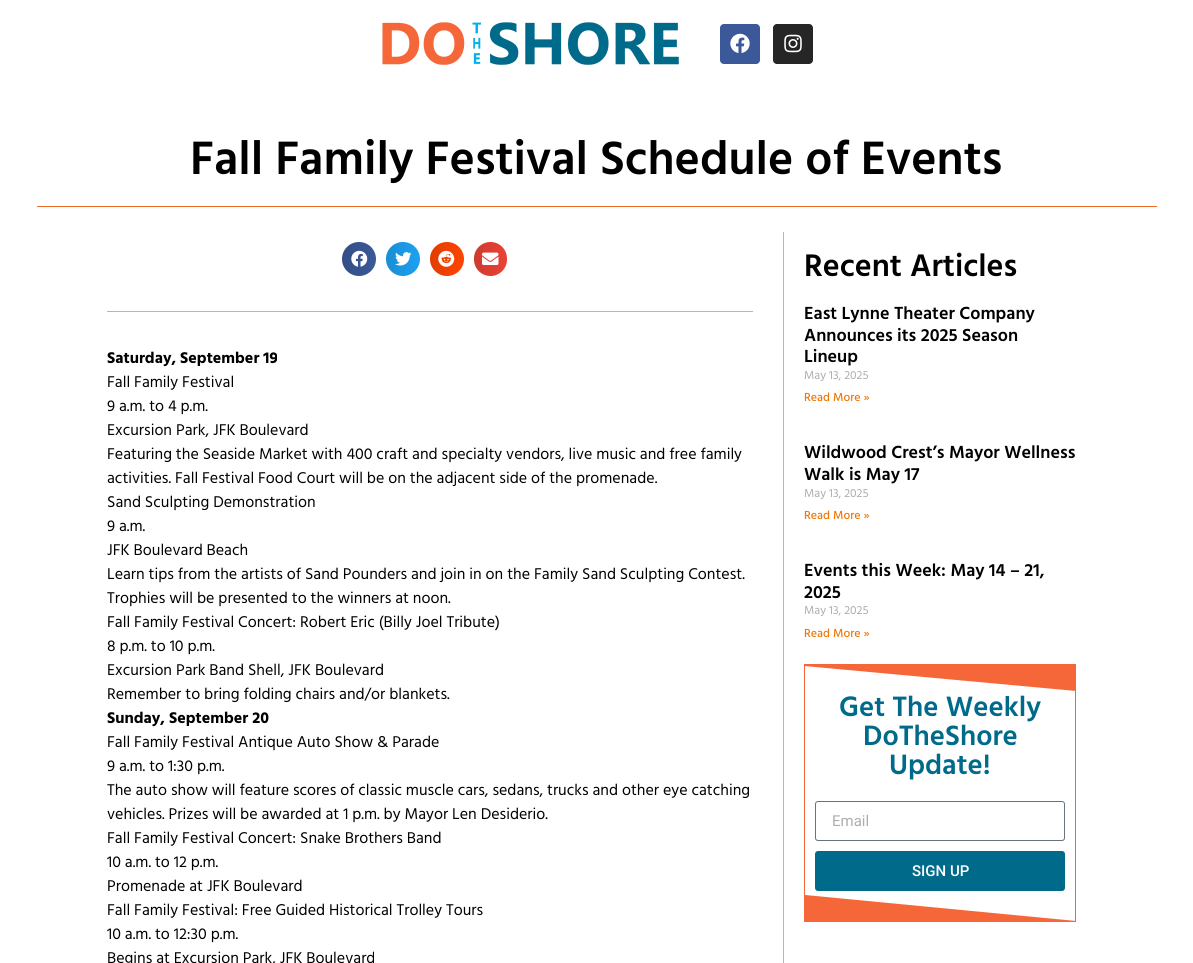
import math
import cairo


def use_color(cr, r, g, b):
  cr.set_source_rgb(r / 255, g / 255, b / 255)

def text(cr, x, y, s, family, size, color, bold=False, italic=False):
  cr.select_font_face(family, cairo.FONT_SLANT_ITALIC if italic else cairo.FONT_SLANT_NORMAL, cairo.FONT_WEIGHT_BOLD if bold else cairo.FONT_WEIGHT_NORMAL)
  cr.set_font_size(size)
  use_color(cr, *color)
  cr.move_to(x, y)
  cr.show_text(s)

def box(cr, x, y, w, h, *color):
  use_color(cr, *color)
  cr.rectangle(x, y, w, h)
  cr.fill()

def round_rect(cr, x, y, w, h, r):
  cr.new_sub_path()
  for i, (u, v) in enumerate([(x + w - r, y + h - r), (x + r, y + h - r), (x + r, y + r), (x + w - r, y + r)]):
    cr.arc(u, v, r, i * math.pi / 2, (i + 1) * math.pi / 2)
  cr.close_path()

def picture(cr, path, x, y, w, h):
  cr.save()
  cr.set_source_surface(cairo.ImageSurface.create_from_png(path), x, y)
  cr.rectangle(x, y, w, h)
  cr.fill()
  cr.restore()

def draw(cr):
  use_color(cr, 255, 255, 255)
  cr.paint()
  picture(cr, "img_01.png", 382, 22, 297, 43)
  use_color(cr, 59, 89, 152)
  round_rect(cr, 720, 24, 40, 40, 4)
  cr.fill()
  picture(cr, "img_02.png", 730, 33, 20, 20)
  use_color(cr, 38, 38, 38)
  round_rect(cr, 773, 24, 40, 40, 4)
  cr.fill()
  picture(cr, "img_03.png", 784, 34, 18, 19)
  box(cr, 37, 206, 1120, 1, 237, 109, 40)
  use_color(cr, 59, 89, 152)
  cr.arc(359, 259, 17, 0, 2 * math.pi)
  cr.fill()
  gradient = cairo.LinearGradient(342, 259, 376, 259)
  gradient.add_color_stop_rgba(0, 0, 0, 0, 0.12)
  gradient.add_color_stop_rgba(1, 0, 0, 0, 0)
  cr.set_source(gradient)
  cr.arc(359, 259, 17, 0, 2 * math.pi)
  cr.fill()
  picture(cr, "img_04.png", 351, 250, 17, 17)
  use_color(cr, 29, 161, 242)
  cr.arc(403, 259, 17, 0, 2 * math.pi)
  cr.fill()
  gradient = cairo.LinearGradient(386, 259, 420, 259)
  gradient.add_color_stop_rgba(0, 0, 0, 0, 0.12)
  gradient.add_color_stop_rgba(1, 0, 0, 0, 0)
  cr.set_source(gradient)
  cr.arc(403, 259, 17, 0, 2 * math.pi)
  cr.fill()
  picture(cr, "img_05.png", 395, 252, 17, 14)
  use_color(cr, 255, 69, 0)
  cr.arc(447, 259, 17, 0, 2 * math.pi)
  cr.fill()
  gradient = cairo.LinearGradient(430, 259, 464, 259)
  gradient.add_color_stop_rgba(0, 0, 0, 0, 0.12)
  gradient.add_color_stop_rgba(1, 0, 0, 0, 0)
  cr.set_source(gradient)
  cr.arc(447, 259, 17, 0, 2 * math.pi)
  cr.fill()
  picture(cr, "img_06.png", 438, 250, 17, 17)
  use_color(cr, 234, 67, 53)
  round_rect(cr, 474, 242, 33, 34, 16.5)
  cr.fill()
  gradient = cairo.LinearGradient(474, 259, 507, 259)
  gradient.add_color_stop_rgba(0, 0, 0, 0, 0.12)
  gradient.add_color_stop_rgba(1, 0, 0, 0, 0)
  cr.set_source(gradient)
  round_rect(cr, 474, 242, 33, 34, 16.5)
  cr.fill()
  picture(cr, "img_07.png", 482, 252, 17, 13)
  box(cr, 107, 311, 646, 1, 182, 182, 182)
  box(cr, 783, 232, 1, 731, 182, 182, 182)
  cr.rectangle(804.5, 664.5, 271, 257)
  use_color(cr, 245, 102, 57)
  cr.set_line_width(1)
  cr.stroke()
  cr.save()
  cr.rectangle(805, 664, 270, 27)
  cr.clip()
  cr.new_path()
  cr.move_to(804, 666)
  cr.line_to(804, 664)
  cr.line_to(1076, 664)
  cr.line_to(1076, 691)
  cr.close_path()
  cr.fill()
  cr.restore()
  round_rect(cr, 815.5, 801.5, 249, 39, 2.5)
  use_color(cr, 105, 114, 125)
  cr.stroke()
  use_color(cr, 0, 106, 139)
  round_rect(cr, 815, 851, 250, 40, 3)
  cr.fill()
  use_color(cr, 245, 102, 57)
  cr.new_path()
  cr.move_to(1076, 921)
  cr.line_to(1076, 922)
  cr.line_to(805, 922)
  cr.line_to(805, 895)
  cr.close_path()
  cr.fill()
  text(cr, 190, 174, "Fall Family Festival Schedule of Events", "Hind SemiBold", 48, (0, 0, 0))
  text(cr, 107, 363, "Saturday, September 19", "Hind", 16, (0, 0, 0), bold=True)
  text(cr, 107, 387, "Fall Family Festival", "Hind", 16, (0, 0, 0))
  text(cr, 107, 411, "9 a.m. to 4 p.m.", "Hind", 16, (0, 0, 0))
  text(cr, 107, 435, "Excursion Park, JFK Boulevard", "Hind", 16, (0, 0, 0))
  text(cr, 107, 459, "Featuring the Seaside Market with 400 craft and specialty vendors, live music and free family", "Hind", 16, (0, 0, 0))
  text(cr, 107, 483, "activities. Fall Festival Food Court will be on the adjacent side of the promenade.", "Hind", 16, (0, 0, 0))
  text(cr, 107, 507, "Sand Sculpting Demonstration", "Hind", 16, (0, 0, 0))
  text(cr, 107, 531, "9 a.m.", "Hind", 16, (0, 0, 0))
  text(cr, 107, 555, "JFK Boulevard Beach", "Hind", 16, (0, 0, 0))
  text(cr, 107, 579, "Learn tips from the artists of Sand Pounders and join in on the Family Sand Sculpting Contest.", "Hind", 16, (0, 0, 0))
  text(cr, 107, 603, "Trophies will be presented to the winners at noon.", "Hind", 16, (0, 0, 0))
  text(cr, 107, 627, "Fall Family Festival Concert: Robert Eric (Billy Joel Tribute)", "Hind", 16, (0, 0, 0))
  text(cr, 107, 651, "8 p.m. to 10 p.m.", "Hind", 16, (0, 0, 0))
  text(cr, 107, 675, "Excursion Park Band Shell, JFK Boulevard", "Hind", 16, (0, 0, 0))
  text(cr, 107, 699, "Remember to bring folding chairs and/or blankets.", "Hind", 16, (0, 0, 0))
  text(cr, 107, 723, "Sunday, September 20", "Hind", 16, (0, 0, 0), bold=True)
  text(cr, 107, 747, "Fall Family Festival Antique Auto Show & Parade", "Hind", 16, (0, 0, 0))
  text(cr, 107, 771, "9 a.m. to 1:30 p.m.", "Hind", 16, (0, 0, 0))
  text(cr, 107, 795, "The auto show will feature scores of classic muscle cars, sedans, trucks and other eye catching", "Hind", 16, (0, 0, 0))
  text(cr, 107, 819, "vehicles. Prizes will be awarded at 1 p.m. by Mayor Len Desiderio.", "Hind", 16, (0, 0, 0))
  text(cr, 107, 843, "Fall Family Festival Concert: Snake Brothers Band", "Hind", 16, (0, 0, 0))
  text(cr, 107, 867, "10 a.m. to 12 p.m.", "Hind", 16, (0, 0, 0))
  text(cr, 107, 891, "Promenade at JFK Boulevard", "Hind", 16, (0, 0, 0))
  text(cr, 107, 915, "Fall Family Festival: Free Guided Historical Trolley Tours", "Hind", 16, (0, 0, 0))
  text(cr, 107, 939, "10 a.m. to 12:30 p.m.", "Hind", 16, (0, 0, 0))
  text(cr, 107, 963, "Begins at Excursion Park, JFK Boulevard", "Hind", 16, (0, 0, 0))
  text(cr, 804, 276, "Recent Articles", "Hind SemiBold", 32, (0, 0, 0))
  text(cr, 804, 319, "East Lynne Theater Company", "Hind SemiBold", 18, (0, 0, 0))
  text(cr, 804, 341, "Announces its 2025 Season", "Hind SemiBold", 18, (0, 0, 0))
  text(cr, 804, 362, "Lineup", "Hind SemiBold", 18, (0, 0, 0))
  text(cr, 804, 379, "May 13, 2025", "Hind", 12, (173, 173, 173))
  text(cr, 804, 401, "Read More »", "Hind Medium", 12, (239, 120, 9))
  text(cr, 804, 458, "Wildwood Crest’s Mayor Wellness", "Hind SemiBold", 18, (0, 0, 0))
  text(cr, 804, 480, "Walk is May 17", "Hind SemiBold", 18, (0, 0, 0))
  text(cr, 804, 497, "May 13, 2025", "Hind", 12, (173, 173, 173))
  text(cr, 804, 519, "Read More »", "Hind Medium", 12, (239, 120, 9))
  text(cr, 804, 576, "Events this Week: May 14 – 21,", "Hind SemiBold", 18, (0, 0, 0))
  text(cr, 804, 598, "2025", "Hind SemiBold", 18, (0, 0, 0))
  text(cr, 804, 614, "May 13, 2025", "Hind", 12, (173, 173, 173))
  text(cr, 804, 637, "Read More »", "Hind Medium", 12, (239, 120, 9))
  text(cr, 839, 716, "Get The Weekly", "Hind SemiBold", 28.75, (0, 106, 139))
  text(cr, 863, 745, "DoTheShore", "Hind SemiBold", 28.75, (0, 106, 139))
  text(cr, 889, 774, "Update!", "Hind SemiBold", 28.75, (0, 106, 139))
  text(cr, 832, 826, "Email", "Roboto", 15, (173, 173, 173))
  text(cr, 912, 876, "SIGN UP", "Roboto Medium", 15, (255, 255, 255))


surface = cairo.ImageSurface(cairo.FORMAT_RGB24, 1193, 963)
cr = cairo.Context(surface)
options = cairo.FontOptions()
options.set_hint_metrics(cairo.HINT_METRICS_OFF)
options.set_hint_style(cairo.HINT_STYLE_NONE)
cr.set_font_options(options)
cr.set_miter_limit(4)
draw(cr)
surface.write_to_png("out.png")
